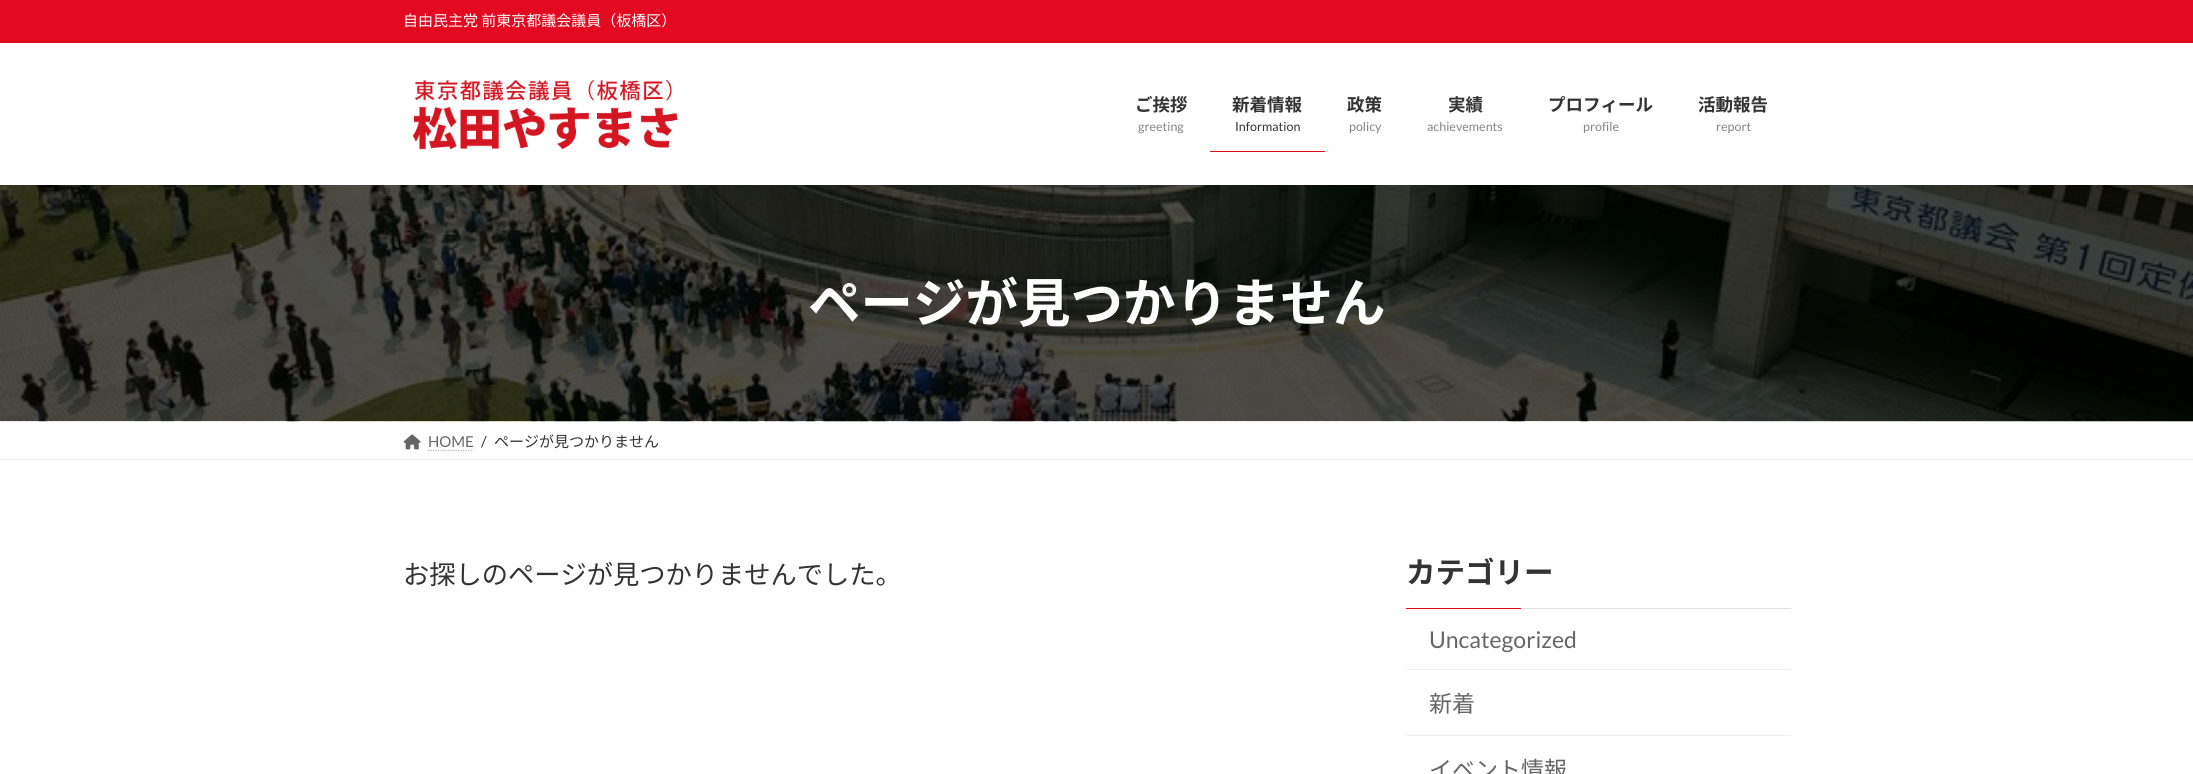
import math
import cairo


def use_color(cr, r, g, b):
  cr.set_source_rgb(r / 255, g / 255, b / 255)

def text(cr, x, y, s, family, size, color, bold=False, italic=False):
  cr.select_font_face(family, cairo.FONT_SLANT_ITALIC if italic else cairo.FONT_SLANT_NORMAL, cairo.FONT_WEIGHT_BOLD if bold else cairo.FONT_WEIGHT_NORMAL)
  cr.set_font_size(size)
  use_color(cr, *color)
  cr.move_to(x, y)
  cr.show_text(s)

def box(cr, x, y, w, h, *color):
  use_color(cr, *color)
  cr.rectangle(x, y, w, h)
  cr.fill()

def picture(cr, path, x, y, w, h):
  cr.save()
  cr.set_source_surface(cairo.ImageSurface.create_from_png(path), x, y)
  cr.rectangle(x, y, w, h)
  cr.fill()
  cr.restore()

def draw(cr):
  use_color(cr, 255, 255, 255)
  cr.paint()
  box(cr, 0, 0, 2193, 43, 226, 9, 32)
  box(cr, 0, 41, 2193, 1, 217, 9, 31)
  picture(cr, "img_01.png", 412, 80, 266, 70)
  box(cr, 1210, 151, 115, 1, 226, 9, 32)
  box(cr, 0, 421, 2193, 1, 240, 240, 240)
  picture(cr, "img_02.png", 0, 185, 2193, 237)
  box(cr, 0, 459, 2193, 1, 240, 240, 240)
  picture(cr, "img_03.png", 403, 434, 18, 16)
  cr.new_path()
  cr.move_to(428, 450.5)
  cr.line_to(473.5, 450.5)
  use_color(cr, 179, 179, 179)
  cr.set_line_width(1.2)
  cr.set_dash([1.25, 1.25])
  cr.stroke()
  box(cr, 1521, 608, 270, 1, 224, 224, 224)
  box(cr, 1406, 608, 115, 1, 226, 9, 32)
  box(cr, 1406, 669, 385, 1, 240, 240, 240)
  box(cr, 1406, 735, 385, 1, 240, 240, 240)
  text(cr, 403, 26, "自由民主党 前東京都議会議員（板橋区）", "Noto Sans JP", 15, (255, 255, 255))
  text(cr, 1135, 111, "ご挨拶", "Noto Sans JP", 17.5, (51, 51, 51), bold=True)
  text(cr, 1138, 131, "greeting", "Lato", 12.5, (133, 133, 133))
  text(cr, 1232, 111, "新着情報", "Noto Sans JP", 17.5, (51, 51, 51), bold=True)
  text(cr, 1235, 131, "Information", "Lato", 12.5, (51, 51, 51))
  text(cr, 1347, 111, "政策", "Noto Sans JP", 17.5, (51, 51, 51), bold=True)
  text(cr, 1349, 131, "policy", "Lato", 12.5, (133, 133, 133))
  text(cr, 1448, 111, "実績", "Noto Sans JP", 17.5, (51, 51, 51), bold=True)
  text(cr, 1427, 131, "achievements", "Lato", 12.5, (133, 133, 133))
  text(cr, 1548, 111, "プロフィール", "Noto Sans JP", 17.5, (51, 51, 51), bold=True)
  text(cr, 1583, 131, "profile", "Lato", 12.5, (133, 133, 133))
  text(cr, 1698, 111, "活動報告", "Noto Sans JP", 17.5, (51, 51, 51), bold=True)
  text(cr, 1716, 131, "report", "Lato", 12.5, (133, 133, 133))
  text(cr, 808, 322, "ページが見つかりません", "Noto Sans JP", 52.5, (255, 255, 255), bold=True)
  text(cr, 428, 447, "HOME", "Lato", 15, (102, 102, 102))
  text(cr, 481, 447, "/", "Lato", 15, (51, 51, 51))
  text(cr, 494, 447, "ページが見つかりません", "Noto Sans JP", 15, (51, 51, 51))
  text(cr, 403, 584, "お探しのページが見つかりませんでした。", "Noto Sans JP", 26.25, (51, 51, 51))
  text(cr, 1406, 583, "カテゴリー", "Noto Sans JP", 29.5, (51, 51, 51), bold=True)
  text(cr, 1429, 648, "Uncategorized", "Lato", 23, (102, 102, 102))
  text(cr, 1429, 712, "新着", "Noto Sans JP", 23, (102, 102, 102))
  text(cr, 1429, 778, "イベント情報", "Noto Sans JP", 23, (102, 102, 102))


surface = cairo.ImageSurface(cairo.FORMAT_RGB24, 2193, 774)
cr = cairo.Context(surface)
options = cairo.FontOptions()
options.set_hint_metrics(cairo.HINT_METRICS_OFF)
options.set_hint_style(cairo.HINT_STYLE_NONE)
cr.set_font_options(options)
cr.set_miter_limit(4)
draw(cr)
surface.write_to_png("out.png")
